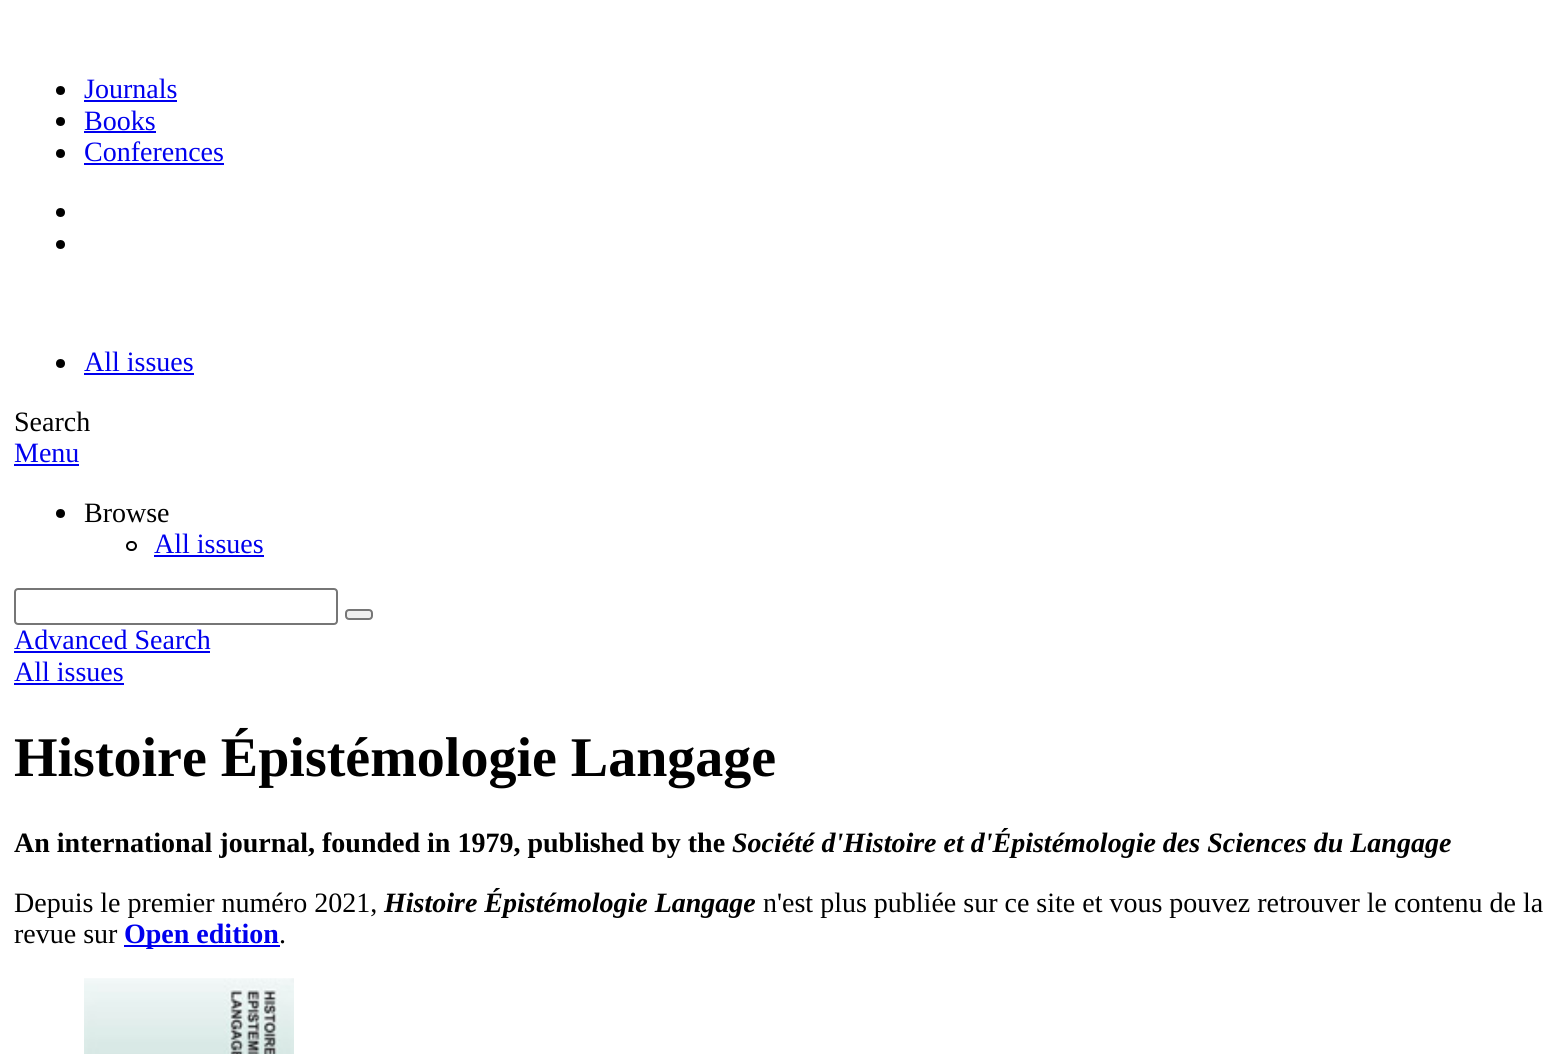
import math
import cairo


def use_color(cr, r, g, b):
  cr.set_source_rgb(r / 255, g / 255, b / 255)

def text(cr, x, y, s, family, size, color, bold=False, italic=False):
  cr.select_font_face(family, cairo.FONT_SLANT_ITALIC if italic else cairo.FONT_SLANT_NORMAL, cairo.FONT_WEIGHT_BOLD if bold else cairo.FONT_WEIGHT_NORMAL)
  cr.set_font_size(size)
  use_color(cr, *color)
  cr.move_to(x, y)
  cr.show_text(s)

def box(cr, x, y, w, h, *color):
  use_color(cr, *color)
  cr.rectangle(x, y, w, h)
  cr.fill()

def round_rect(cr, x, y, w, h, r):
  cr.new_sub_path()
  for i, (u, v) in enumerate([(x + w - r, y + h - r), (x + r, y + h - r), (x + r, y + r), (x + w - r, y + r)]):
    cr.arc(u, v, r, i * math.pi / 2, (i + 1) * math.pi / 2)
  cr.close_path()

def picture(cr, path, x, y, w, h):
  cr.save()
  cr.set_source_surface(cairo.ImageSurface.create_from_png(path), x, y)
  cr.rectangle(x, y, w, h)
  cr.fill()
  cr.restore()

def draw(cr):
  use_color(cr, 255, 255, 255)
  cr.paint()
  use_color(cr, 0, 0, 0)
  cr.arc(60.5, 90.5, 4.5, 0, 2 * math.pi)
  cr.fill()
  box(cr, 84, 100, 93, 2, 0, 0, 238)
  use_color(cr, 0, 0, 0)
  cr.arc(60.5, 121.5, 4.5, 0, 2 * math.pi)
  cr.fill()
  box(cr, 84, 131, 72, 2, 0, 0, 238)
  use_color(cr, 0, 0, 0)
  cr.arc(60.5, 153.5, 4.5, 0, 2 * math.pi)
  cr.fill()
  box(cr, 84, 163, 140, 2, 0, 0, 238)
  use_color(cr, 0, 0, 0)
  cr.arc(60.5, 212.5, 4.5, 0, 2 * math.pi)
  cr.fill()
  cr.arc(60.5, 244.5, 4.5, 0, 2 * math.pi)
  cr.fill()
  cr.arc(60.5, 363.5, 4.5, 0, 2 * math.pi)
  cr.fill()
  box(cr, 84, 373, 110, 2, 0, 0, 238)
  box(cr, 14, 464, 65, 2, 0, 0, 238)
  use_color(cr, 0, 0, 0)
  cr.arc(60.5, 513.5, 4.5, 0, 2 * math.pi)
  cr.fill()
  round_rect(cr, 127, 542, 9, 8, 4)
  cr.stroke()
  box(cr, 154, 555, 110, 2, 0, 0, 238)
  round_rect(cr, 15, 589, 322, 35, 3)
  use_color(cr, 118, 118, 118)
  cr.stroke()
  use_color(cr, 239, 239, 239)
  round_rect(cr, 346, 610, 26, 9, 3)
  cr.fill_preserve()
  use_color(cr, 118, 118, 118)
  cr.stroke()
  box(cr, 14, 651, 196, 2, 0, 0, 238)
  box(cr, 14, 683, 110, 2, 0, 0, 238)
  box(cr, 124, 945, 156, 2, 0, 0, 238)
  picture(cr, "img_01.png", 84, 978, 210, 76)
  text(cr, 84, 98, "Journals", "Liberation Serif", 28, (0, 0, 238))
  text(cr, 84, 130, "Books", "Liberation Serif", 28, (0, 0, 238))
  text(cr, 84, 161, "Conferences", "Liberation Serif", 28, (0, 0, 238))
  text(cr, 84, 371, "All issues", "Liberation Serif", 28, (0, 0, 238))
  text(cr, 14, 431, "Search", "Liberation Serif", 28, (0, 0, 0))
  text(cr, 14, 462, "Menu", "Liberation Serif", 28, (0, 0, 238))
  text(cr, 84, 522, "Browse", "Liberation Serif", 28, (0, 0, 0))
  text(cr, 154, 553, "All issues", "Liberation Serif", 28, (0, 0, 238))
  text(cr, 14, 649, "Advanced Search", "Liberation Serif", 28, (0, 0, 238))
  text(cr, 14, 681, "All issues", "Liberation Serif", 28, (0, 0, 238))
  text(cr, 14, 776, "Histoire Épistémologie Langage", "Liberation Serif", 56, (0, 0, 0), bold=True)
  text(cr, 14, 852, "An international journal, founded in 1979, published by the", "Liberation Serif", 28, (0, 0, 0), bold=True)
  text(cr, 732, 852, "Société d'Histoire et d'Épistémologie des Sciences du Langage", "Liberation Serif", 28, (0, 0, 0), bold=True, italic=True)
  text(cr, 14, 912, "Depuis le premier numéro 2021,", "Liberation Serif", 28, (0, 0, 0))
  text(cr, 384, 912, "Histoire Épistémologie Langage", "Liberation Serif", 28, (0, 0, 0), bold=True, italic=True)
  text(cr, 763, 912, "n'est plus publiée sur ce site et vous pouvez retrouver le contenu de la", "Liberation Serif", 28, (0, 0, 0))
  text(cr, 14, 943, "revue sur", "Liberation Serif", 28, (0, 0, 0))
  text(cr, 124, 943, "Open edition", "Liberation Serif", 28, (0, 0, 238), bold=True)
  text(cr, 279, 943, ".", "Liberation Serif", 28, (0, 0, 0))


surface = cairo.ImageSurface(cairo.FORMAT_RGB24, 1564, 1054)
cr = cairo.Context(surface)
options = cairo.FontOptions()
options.set_hint_metrics(cairo.HINT_METRICS_OFF)
options.set_hint_style(cairo.HINT_STYLE_NONE)
cr.set_font_options(options)
cr.set_miter_limit(4)
draw(cr)
surface.write_to_png("out.png")
